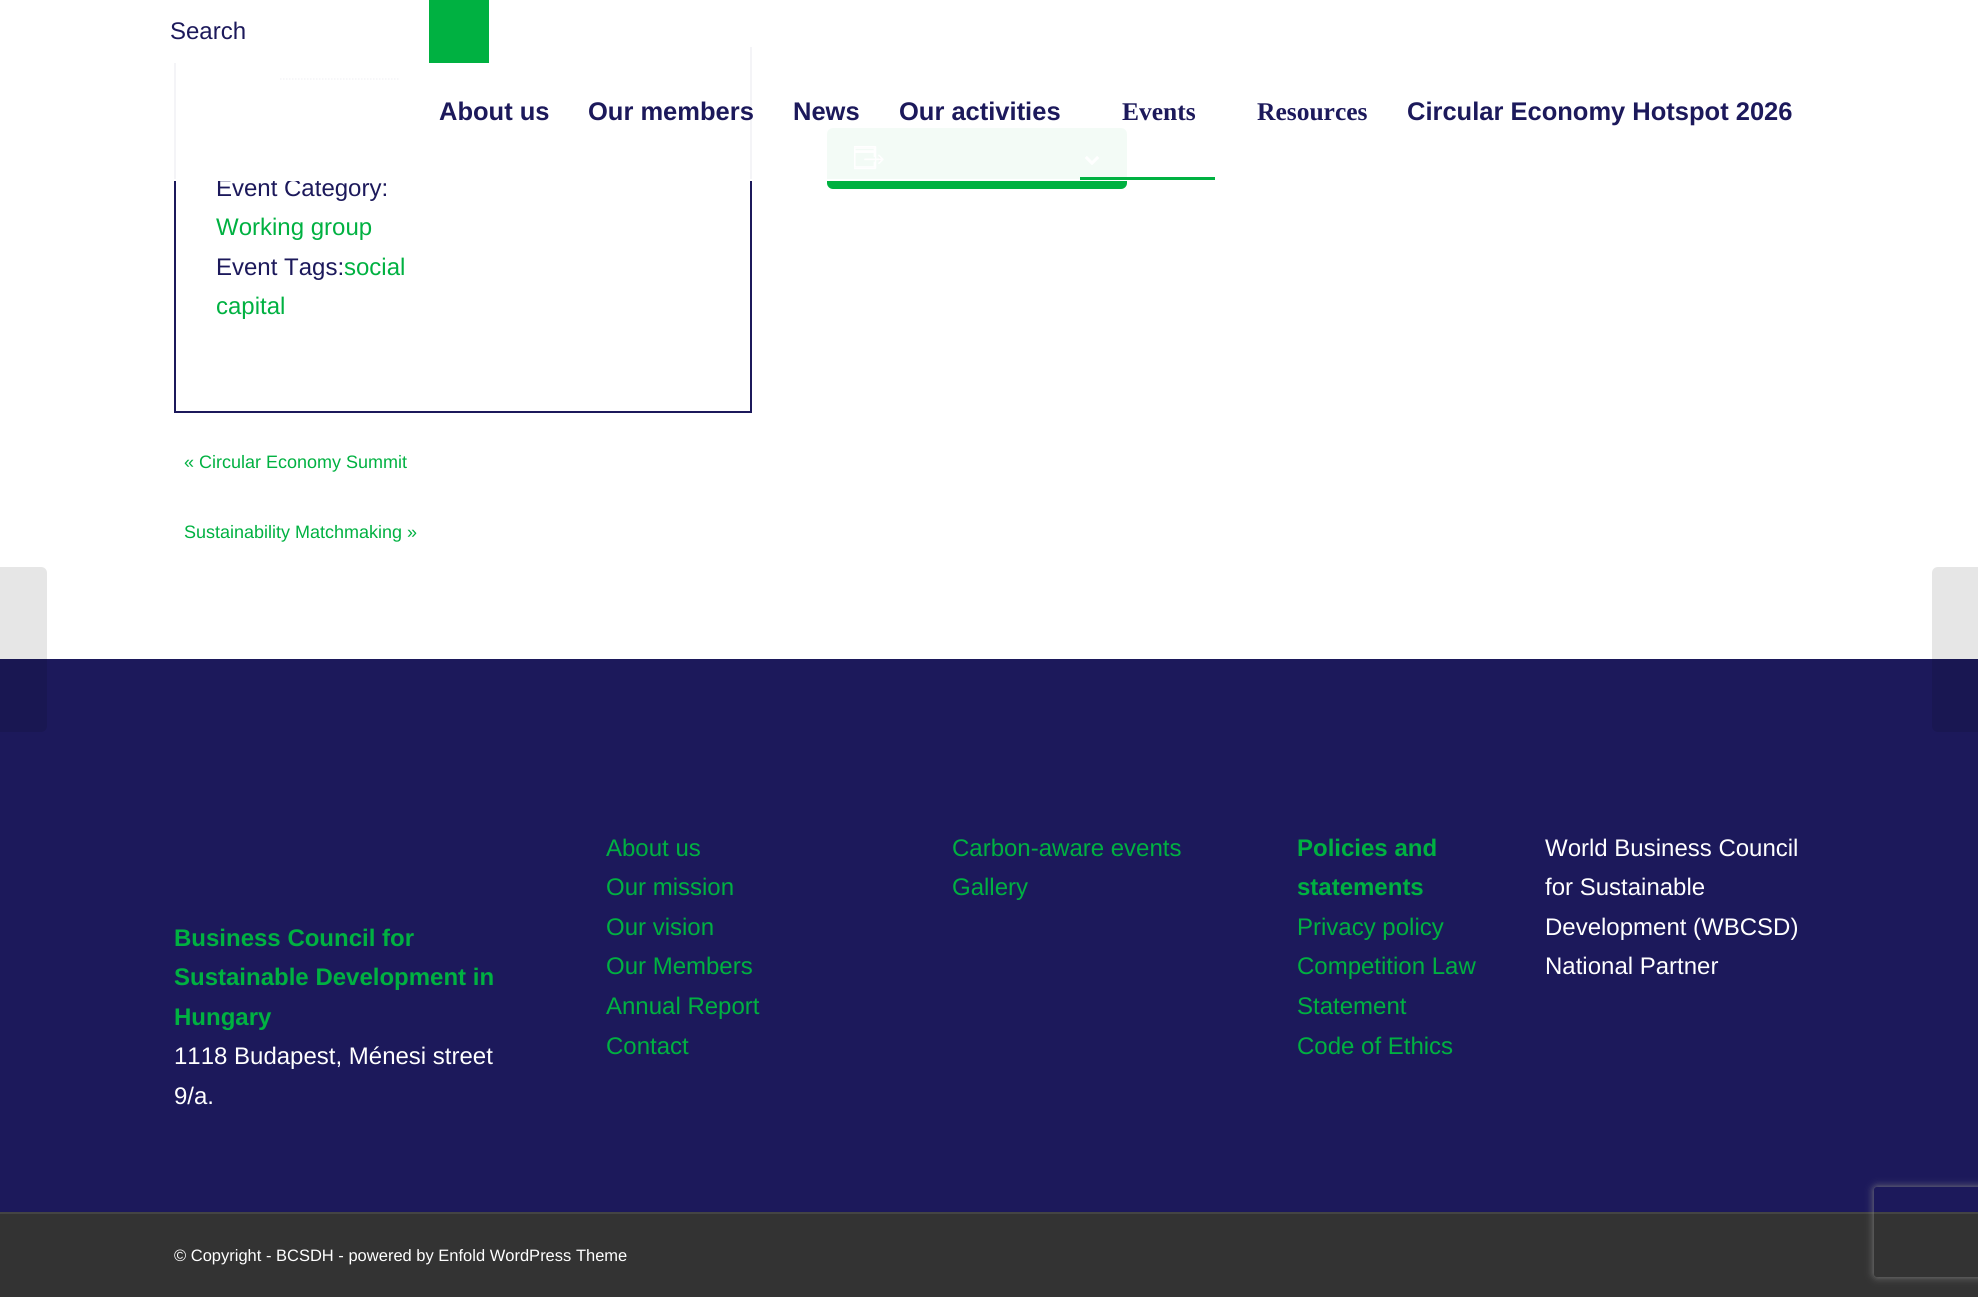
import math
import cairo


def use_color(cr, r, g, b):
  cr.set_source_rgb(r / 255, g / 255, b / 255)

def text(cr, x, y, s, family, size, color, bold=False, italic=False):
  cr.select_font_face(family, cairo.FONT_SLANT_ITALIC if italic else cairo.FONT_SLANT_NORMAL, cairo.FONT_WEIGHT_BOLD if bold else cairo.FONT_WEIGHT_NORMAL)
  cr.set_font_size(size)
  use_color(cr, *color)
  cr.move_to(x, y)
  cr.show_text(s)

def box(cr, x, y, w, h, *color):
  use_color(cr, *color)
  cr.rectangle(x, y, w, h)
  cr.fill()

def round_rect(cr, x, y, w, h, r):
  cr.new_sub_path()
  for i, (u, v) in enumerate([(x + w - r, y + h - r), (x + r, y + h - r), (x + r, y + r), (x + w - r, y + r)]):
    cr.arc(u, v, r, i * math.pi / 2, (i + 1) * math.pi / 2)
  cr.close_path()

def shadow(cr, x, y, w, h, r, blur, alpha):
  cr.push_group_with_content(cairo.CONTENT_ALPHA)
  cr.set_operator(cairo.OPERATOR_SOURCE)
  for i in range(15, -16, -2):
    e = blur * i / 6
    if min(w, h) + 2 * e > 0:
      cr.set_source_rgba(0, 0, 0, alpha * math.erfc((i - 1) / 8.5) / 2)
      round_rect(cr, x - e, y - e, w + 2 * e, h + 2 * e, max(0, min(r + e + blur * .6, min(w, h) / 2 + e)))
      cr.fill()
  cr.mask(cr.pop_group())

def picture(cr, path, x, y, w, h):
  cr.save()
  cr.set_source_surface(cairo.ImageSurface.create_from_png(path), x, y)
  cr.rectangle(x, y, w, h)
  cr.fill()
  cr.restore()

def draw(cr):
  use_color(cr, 255, 255, 255)
  cr.paint()
  cr.rectangle(175, -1, 576, 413)
  use_color(cr, 28, 25, 91)
  cr.stroke()
  box(cr, 174, 0, 578, 47, 255, 255, 255)
  use_color(cr, 0, 177, 65)
  round_rect(cr, 828, 129, 298, 59, 5)
  cr.fill_preserve()
  cr.stroke()
  picture(cr, "img_01.png", 854, 146, 30, 24)
  picture(cr, "img_02.png", 1085, 156, 15, 9)
  cr.new_path()
  cr.move_to(280, 79)
  cr.line_to(400, 79)
  use_color(cr, 28, 25, 91)
  cr.set_line_width(1.5)
  cr.set_dash([1.5, 1.5])
  cr.stroke()
  cr.set_source_rgba(1, 1, 1, 0.95)
  cr.rectangle(174, 47, 953, 132)
  cr.fill()
  box(cr, 174, 47, 2, 16, 255, 255, 255)
  box(cr, 429, 0, 60, 63, 0, 177, 65)
  box(cr, 0, 659, 1978, 553, 28, 25, 91)
  cr.set_source_rgba(0, 0, 0, 0.1)
  cr.new_path()
  cr.move_to(0, 567)
  cr.line_to(41, 567)
  cr.curve_to(44.5, 567, 47, 569.5, 47, 573)
  cr.line_to(47, 726)
  cr.curve_to(47, 729.5, 44.5, 732, 41, 732)
  cr.line_to(0, 732)
  cr.close_path()
  cr.fill()
  box(cr, 0, 1214, 1978, 83, 51, 51, 51)
  box(cr, 0, 1212, 1978, 2, 68, 68, 68)
  cr.set_source_rgba(0, 0, 0, 0.1)
  cr.new_path()
  cr.move_to(1938, 567)
  cr.line_to(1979, 567)
  cr.line_to(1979, 732)
  cr.line_to(1938, 732)
  cr.curve_to(1934.5, 732, 1932, 729.5, 1932, 726)
  cr.line_to(1932, 573)
  cr.curve_to(1932, 569.5, 1934.5, 567, 1938, 567)
  cr.close_path()
  cr.fill()
  cr.save()
  cr.set_fill_rule(cairo.FILL_RULE_EVEN_ODD)
  cr.new_path()
  cr.move_to(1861, 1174)
  cr.line_to(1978, 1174)
  cr.line_to(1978, 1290)
  cr.line_to(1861, 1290)
  cr.close_path()
  cr.move_to(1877, 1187)
  cr.line_to(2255, 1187)
  cr.curve_to(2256.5, 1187, 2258, 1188.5, 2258, 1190)
  cr.line_to(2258, 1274)
  cr.curve_to(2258, 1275.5, 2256.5, 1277, 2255, 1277)
  cr.line_to(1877, 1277)
  cr.curve_to(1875.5, 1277, 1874, 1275.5, 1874, 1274)
  cr.line_to(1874, 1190)
  cr.curve_to(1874, 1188.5, 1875.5, 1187, 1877, 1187)
  cr.close_path()
  cr.clip()
  use_color(cr, 128, 128, 128)
  shadow(cr, 1874, 1187, 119, 90, 3, 4, 1)
  cr.restore()
  text(cr, 170, 39, "Search", "Liberation Sans", 24, (28, 25, 91))
  text(cr, 439, 120, "About us", "Liberation Sans", 25.5, (28, 25, 91), bold=True)
  text(cr, 588, 120, "Our members", "Liberation Sans", 25.5, (28, 25, 91), bold=True)
  text(cr, 793, 120, "News", "Liberation Sans", 25.5, (28, 25, 91), bold=True)
  text(cr, 899, 120, "Our activities", "Liberation Sans", 25.5, (28, 25, 91), bold=True)
  text(cr, 1122, 120, "Events", "Liberation Serif", 25.5, (28, 25, 91), bold=True)
  text(cr, 1257, 120, "Resources", "Liberation Serif", 25.5, (28, 25, 91), bold=True)
  text(cr, 1407, 120, "Circular Economy Hotspot 2026", "Liberation Sans", 25.5, (28, 25, 91), bold=True)
  text(cr, 216, 196, "Event Category:", "Liberation Sans", 24, (28, 25, 91))
  box(cr, 174, 179, 953, 2, 255, 255, 255)
  box(cr, 1080, 177, 135, 3, 0, 177, 65)
  text(cr, 216, 235, "Working group", "Liberation Sans", 24, (0, 177, 65))
  text(cr, 216, 275, "Event Tags:", "Liberation Sans", 24, (28, 25, 91))
  text(cr, 344, 275, "social", "Liberation Sans", 24, (0, 177, 65))
  text(cr, 216, 314, "capital", "Liberation Sans", 24, (0, 177, 65))
  text(cr, 184, 468, "« Circular Economy Summit", "Liberation Sans", 18, (0, 177, 65))
  text(cr, 184, 538, "Sustainability Matchmaking »", "Liberation Sans", 18, (0, 177, 65))
  text(cr, 606, 856, "About us", "Liberation Sans", 24, (0, 177, 65))
  text(cr, 606, 895, "Our mission", "Liberation Sans", 24, (0, 177, 65))
  text(cr, 606, 935, "Our vision", "Liberation Sans", 24, (0, 177, 65))
  text(cr, 606, 974, "Our Members", "Liberation Sans", 24, (0, 177, 65))
  text(cr, 606, 1014, "Annual Report", "Liberation Sans", 24, (0, 177, 65))
  text(cr, 606, 1054, "Contact", "Liberation Sans", 24, (0, 177, 65))
  text(cr, 952, 856, "Carbon-aware events", "Liberation Sans", 24, (0, 177, 65))
  text(cr, 952, 895, "Gallery", "Liberation Sans", 24, (0, 177, 65))
  text(cr, 1297, 856, "Policies and", "Liberation Sans", 24, (0, 177, 65), bold=True)
  text(cr, 1297, 895, "statements", "Liberation Sans", 24, (0, 177, 65), bold=True)
  text(cr, 1297, 935, "Privacy policy", "Liberation Sans", 24, (0, 177, 65))
  text(cr, 1297, 974, "Competition Law", "Liberation Sans", 24, (0, 177, 65))
  text(cr, 1297, 1014, "Statement", "Liberation Sans", 24, (0, 177, 65))
  text(cr, 1297, 1054, "Code of Ethics", "Liberation Sans", 24, (0, 177, 65))
  text(cr, 1545, 856, "World Business Council", "Liberation Sans", 24, (255, 255, 255))
  text(cr, 1545, 895, "for Sustainable", "Liberation Sans", 24, (255, 255, 255))
  text(cr, 1545, 935, "Development (WBCSD)", "Liberation Sans", 24, (255, 255, 255))
  text(cr, 1545, 974, "National Partner", "Liberation Sans", 24, (255, 255, 255))
  text(cr, 174, 946, "Business Council for", "Liberation Sans", 24, (0, 177, 65), bold=True)
  text(cr, 174, 985, "Sustainable Development in", "Liberation Sans", 24, (0, 177, 65), bold=True)
  text(cr, 174, 1025, "Hungary", "Liberation Sans", 24, (0, 177, 65), bold=True)
  text(cr, 174, 1064, "1118 Budapest, Ménesi street", "Liberation Sans", 24, (255, 255, 255))
  text(cr, 174, 1104, "9/a.", "Liberation Sans", 24, (255, 255, 255))
  text(cr, 174, 1261, "© Copyright - BCSDH - powered by Enfold WordPress Theme", "Liberation Sans", 16.5, (255, 255, 255))


surface = cairo.ImageSurface(cairo.FORMAT_RGB24, 1978, 1297)
cr = cairo.Context(surface)
options = cairo.FontOptions()
options.set_hint_metrics(cairo.HINT_METRICS_OFF)
options.set_hint_style(cairo.HINT_STYLE_NONE)
cr.set_font_options(options)
cr.set_miter_limit(4)
draw(cr)
surface.write_to_png("out.png")
